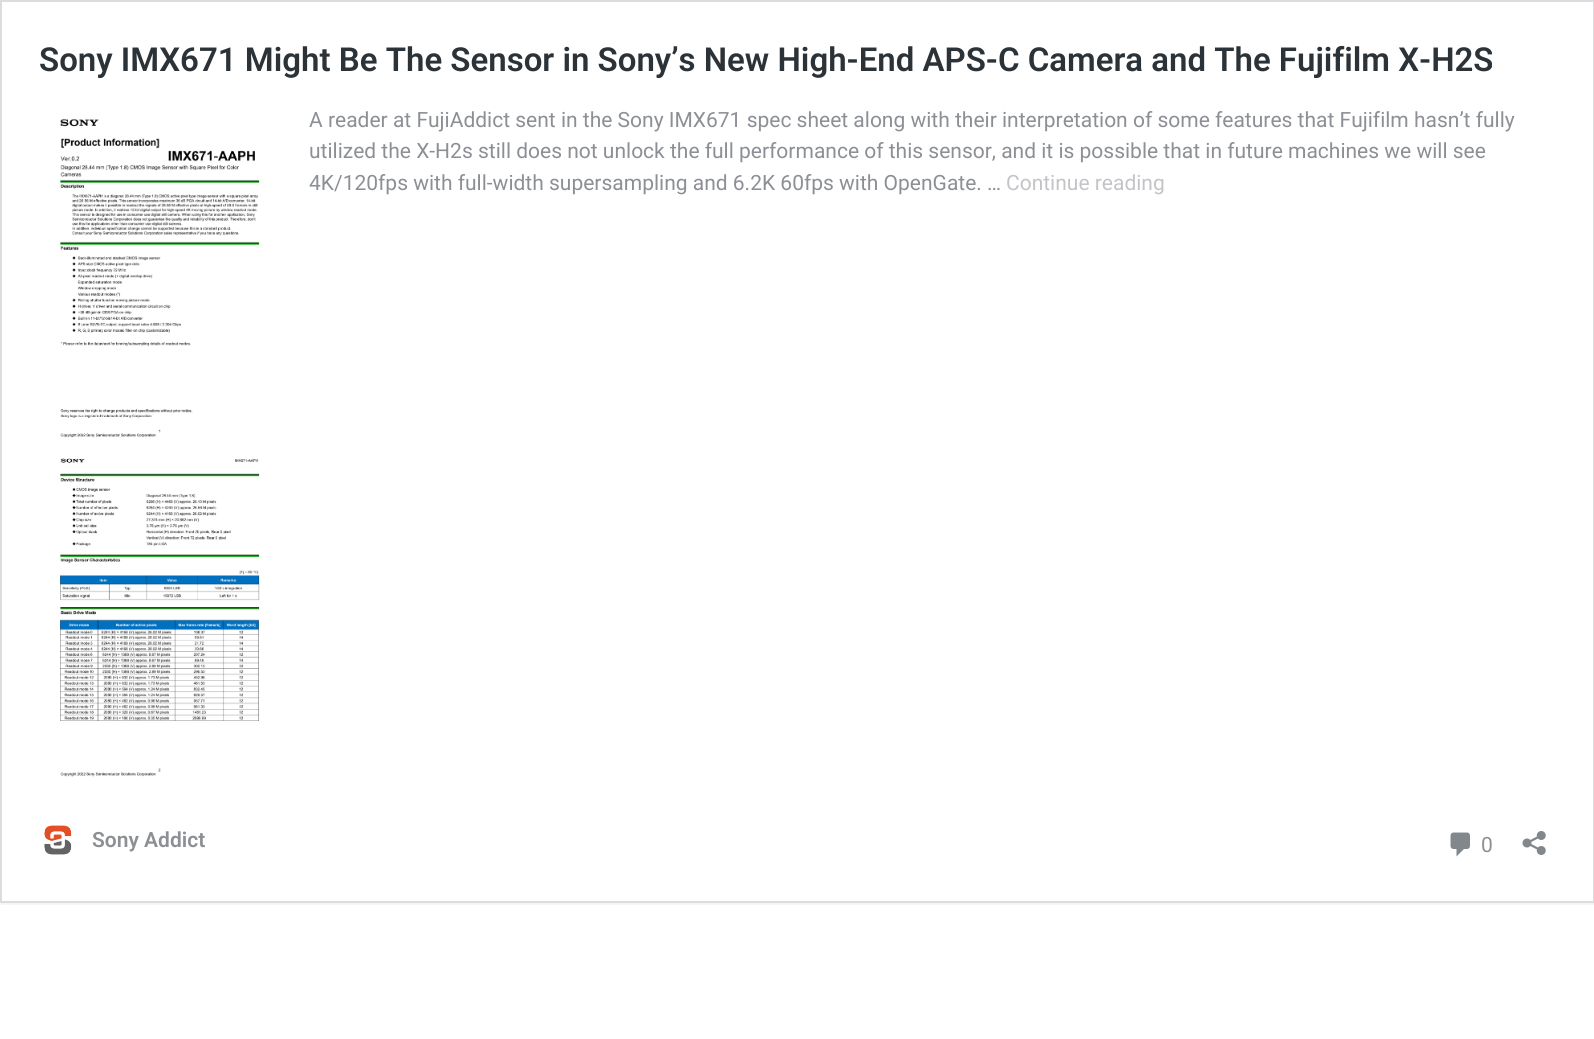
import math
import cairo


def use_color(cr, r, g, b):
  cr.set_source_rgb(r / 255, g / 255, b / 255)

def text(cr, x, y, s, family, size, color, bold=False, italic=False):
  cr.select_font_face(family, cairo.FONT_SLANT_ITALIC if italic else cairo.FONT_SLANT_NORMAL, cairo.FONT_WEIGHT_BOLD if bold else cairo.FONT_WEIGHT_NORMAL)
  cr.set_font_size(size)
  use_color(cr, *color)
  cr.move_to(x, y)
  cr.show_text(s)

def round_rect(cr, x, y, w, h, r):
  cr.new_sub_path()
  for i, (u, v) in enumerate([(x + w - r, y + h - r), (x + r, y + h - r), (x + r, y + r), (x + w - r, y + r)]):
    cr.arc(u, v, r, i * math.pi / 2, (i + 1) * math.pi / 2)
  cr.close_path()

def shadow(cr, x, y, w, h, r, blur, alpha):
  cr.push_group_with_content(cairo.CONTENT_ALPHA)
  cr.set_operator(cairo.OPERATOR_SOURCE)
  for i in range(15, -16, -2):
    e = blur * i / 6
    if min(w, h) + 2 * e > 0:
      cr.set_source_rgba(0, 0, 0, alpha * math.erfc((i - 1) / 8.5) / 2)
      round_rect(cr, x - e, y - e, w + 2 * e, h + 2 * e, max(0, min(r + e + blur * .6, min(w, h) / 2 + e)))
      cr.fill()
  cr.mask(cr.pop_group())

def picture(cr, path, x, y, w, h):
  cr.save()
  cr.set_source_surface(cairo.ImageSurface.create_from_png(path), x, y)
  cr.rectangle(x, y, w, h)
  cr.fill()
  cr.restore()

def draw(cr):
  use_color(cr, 255, 255, 255)
  cr.paint()
  cr.save()
  cr.rectangle(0, 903, 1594, 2)
  cr.clip()
  use_color(cr, 0, 0, 0)
  shadow(cr, 0, 2, 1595, 903, 0, 1, 0.05)
  cr.restore()
  cr.rectangle(1, 1, 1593, 901)
  use_color(cr, 220, 220, 222)
  cr.stroke()
  picture(cr, "img_01.png", 60, 118, 200, 659)
  picture(cr, "img_02.png", 44, 825, 28, 30)
  picture(cr, "img_03.png", 1450, 832, 20, 25)
  picture(cr, "img_04.png", 1522, 831, 24, 24)
  text(cr, 39, 71, "Sony IMX671 Might Be The Sensor in Sony’s New High-End APS-C Camera and The Fujifilm X-H2S", "Roboto SemiBold", 33, (44, 51, 56))
  text(cr, 309, 127, "A reader at FujiAddict sent in the Sony IMX671 spec sheet along with their interpretation of some features that Fujifilm hasn’t fully", "Roboto", 21, (140, 143, 148))
  text(cr, 309, 158, "utilized the X-H2s still does not unlock the full performance of this sensor, and it is possible that in future machines we will see", "Roboto", 21, (140, 143, 148))
  text(cr, 309, 190, "4K/120fps with full-width supersampling and 6.2K 60fps with OpenGate. …", "Roboto", 21, (140, 143, 148))
  text(cr, 1006, 190, "Continue reading", "Roboto", 21, (195, 196, 199))
  text(cr, 92, 847, "Sony Addict", "Roboto SemiBold", 21, (140, 143, 148))
  text(cr, 1481, 852, "0", "Roboto", 21, (140, 143, 148))


surface = cairo.ImageSurface(cairo.FORMAT_RGB24, 1594, 1039)
cr = cairo.Context(surface)
options = cairo.FontOptions()
options.set_hint_metrics(cairo.HINT_METRICS_OFF)
options.set_hint_style(cairo.HINT_STYLE_NONE)
cr.set_font_options(options)
cr.set_miter_limit(4)
draw(cr)
surface.write_to_png("out.png")
